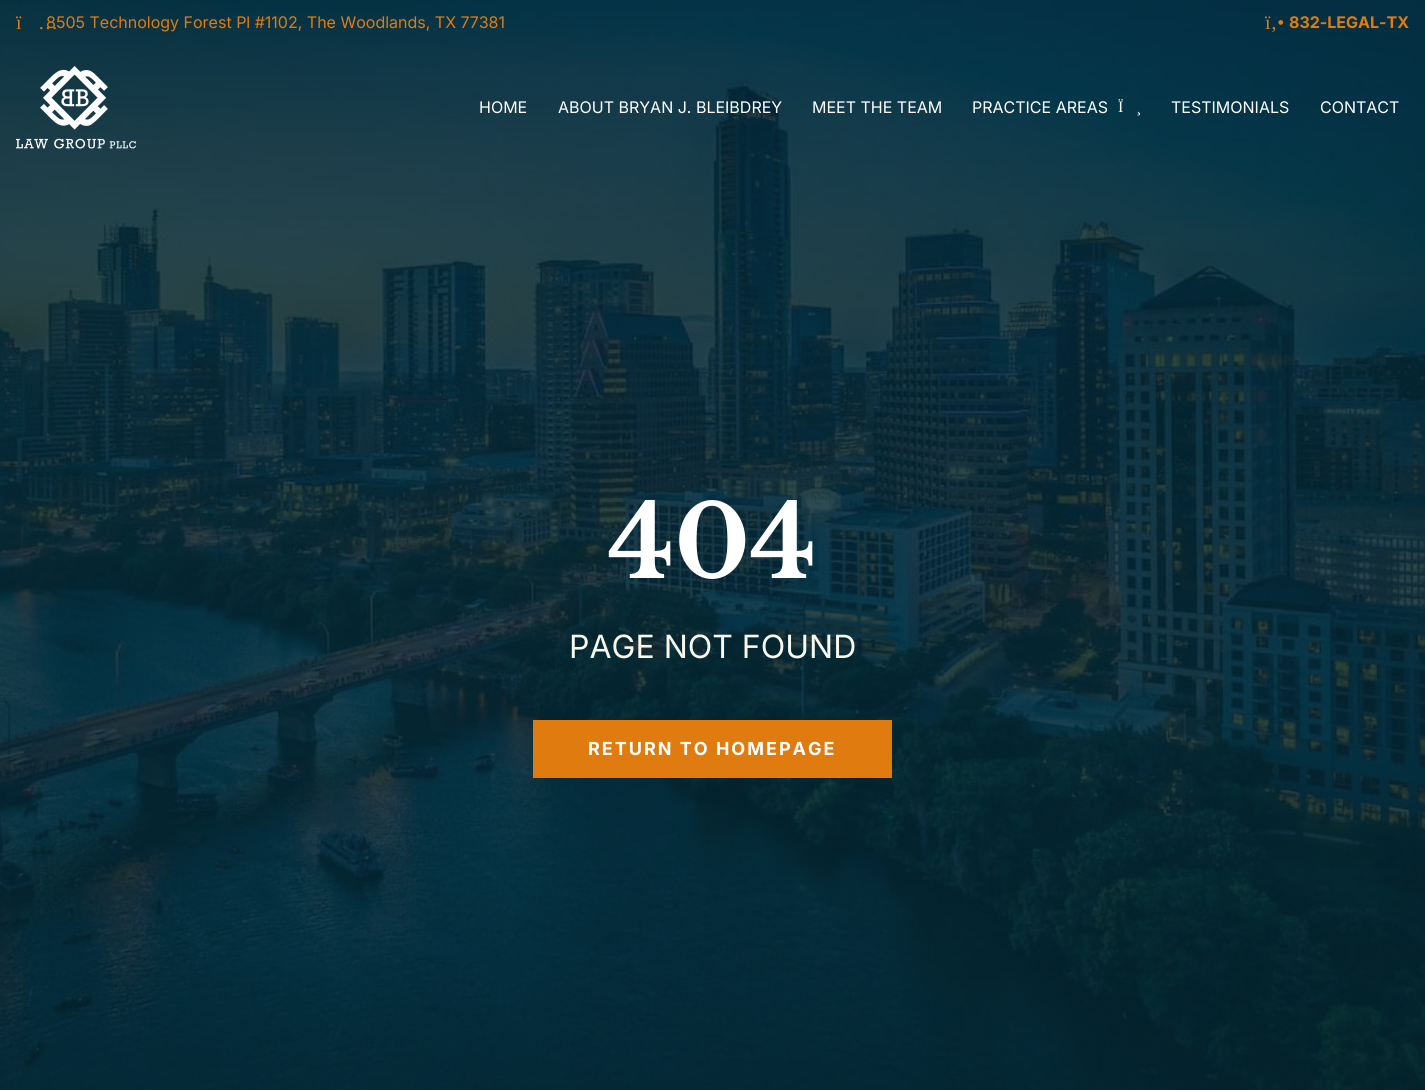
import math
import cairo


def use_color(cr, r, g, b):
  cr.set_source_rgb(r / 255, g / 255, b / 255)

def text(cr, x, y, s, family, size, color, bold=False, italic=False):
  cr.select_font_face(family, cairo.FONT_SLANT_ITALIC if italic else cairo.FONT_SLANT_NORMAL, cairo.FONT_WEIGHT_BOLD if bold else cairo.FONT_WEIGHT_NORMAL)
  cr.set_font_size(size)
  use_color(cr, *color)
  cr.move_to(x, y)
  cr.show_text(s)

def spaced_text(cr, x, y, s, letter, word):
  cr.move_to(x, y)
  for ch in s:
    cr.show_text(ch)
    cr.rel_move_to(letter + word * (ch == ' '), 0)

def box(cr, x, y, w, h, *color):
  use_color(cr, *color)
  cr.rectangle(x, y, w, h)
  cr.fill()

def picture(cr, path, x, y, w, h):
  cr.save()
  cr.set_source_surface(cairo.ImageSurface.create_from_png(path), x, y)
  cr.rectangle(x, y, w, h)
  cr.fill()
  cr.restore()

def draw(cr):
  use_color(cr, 255, 255, 255)
  cr.paint()
  picture(cr, "img_02.png", 0, 0, 1425, 1090)
  picture(cr, "img_01.png", 16, 66, 120, 83)
  box(cr, 533, 720, 359, 58, 223, 123, 15)
  text(cr, 16, 29, "ï", "Liberation Serif", 20, (223, 123, 15))
  text(cr, 46, 28, "8505 Technology Forest Pl #1102, The Woodlands, TX 77381", "Inter", 16, (223, 123, 15))
  text(cr, 38, 29, "…", "Liberation Serif", 20, (223, 123, 15))
  text(cr, 1265, 29, "ï‚•", "Liberation Serif", 20, (223, 123, 15))
  text(cr, 1289, 28, "832-LEGAL-TX", "Inter", 16, (223, 123, 15), bold=True)
  text(cr, 479, 113, "HOME", "Inter", 16, (255, 255, 255))
  text(cr, 558, 113, "ABOUT BRYAN J. BLEIBDREY", "Inter", 16, (255, 255, 255))
  text(cr, 812, 113, "MEET THE TEAM", "Inter", 16, (255, 255, 255))
  text(cr, 972, 113, "PRACTICE AREAS", "Inter", 16, (255, 255, 255))
  text(cr, 1118, 112, "Ï", "Liberation Serif", 16, (255, 255, 255))
  text(cr, 1136, 112, "¸", "Liberation Serif", 16, (255, 255, 255))
  text(cr, 1171, 113, "TESTIMONIALS", "Inter", 16, (255, 255, 255))
  text(cr, 1320, 113, "CONTACT", "Inter", 16, (255, 255, 255))
  text(cr, 608, 578, "404", "Libre Baskerville", 100, (255, 255, 255), bold=True)
  text(cr, 569, 658, "PAGE NOT FOUND", "Inter", 32, (248, 248, 236))
  cr.select_font_face("Inter", cairo.FONT_SLANT_NORMAL, cairo.FONT_WEIGHT_BOLD)
  cr.set_font_size(18)
  use_color(cr, 255, 255, 255)
  spaced_text(cr, 588, 755, "RETURN TO HOMEPAGE", 2, 0)


surface = cairo.ImageSurface(cairo.FORMAT_RGB24, 1425, 1090)
cr = cairo.Context(surface)
options = cairo.FontOptions()
options.set_hint_metrics(cairo.HINT_METRICS_OFF)
options.set_hint_style(cairo.HINT_STYLE_NONE)
cr.set_font_options(options)
cr.set_miter_limit(4)
draw(cr)
surface.write_to_png("out.png")
